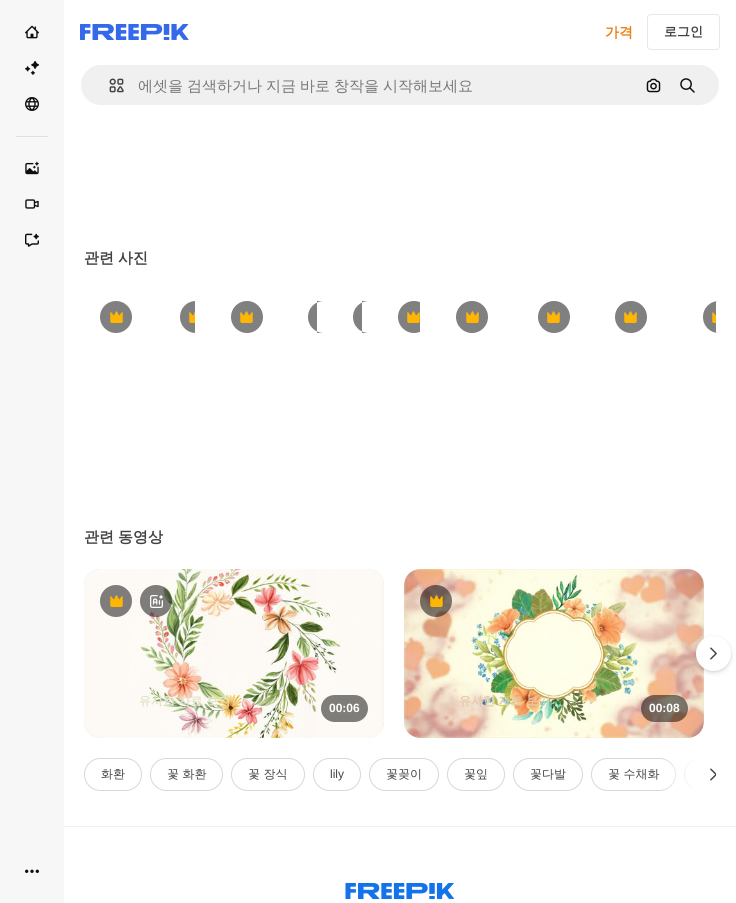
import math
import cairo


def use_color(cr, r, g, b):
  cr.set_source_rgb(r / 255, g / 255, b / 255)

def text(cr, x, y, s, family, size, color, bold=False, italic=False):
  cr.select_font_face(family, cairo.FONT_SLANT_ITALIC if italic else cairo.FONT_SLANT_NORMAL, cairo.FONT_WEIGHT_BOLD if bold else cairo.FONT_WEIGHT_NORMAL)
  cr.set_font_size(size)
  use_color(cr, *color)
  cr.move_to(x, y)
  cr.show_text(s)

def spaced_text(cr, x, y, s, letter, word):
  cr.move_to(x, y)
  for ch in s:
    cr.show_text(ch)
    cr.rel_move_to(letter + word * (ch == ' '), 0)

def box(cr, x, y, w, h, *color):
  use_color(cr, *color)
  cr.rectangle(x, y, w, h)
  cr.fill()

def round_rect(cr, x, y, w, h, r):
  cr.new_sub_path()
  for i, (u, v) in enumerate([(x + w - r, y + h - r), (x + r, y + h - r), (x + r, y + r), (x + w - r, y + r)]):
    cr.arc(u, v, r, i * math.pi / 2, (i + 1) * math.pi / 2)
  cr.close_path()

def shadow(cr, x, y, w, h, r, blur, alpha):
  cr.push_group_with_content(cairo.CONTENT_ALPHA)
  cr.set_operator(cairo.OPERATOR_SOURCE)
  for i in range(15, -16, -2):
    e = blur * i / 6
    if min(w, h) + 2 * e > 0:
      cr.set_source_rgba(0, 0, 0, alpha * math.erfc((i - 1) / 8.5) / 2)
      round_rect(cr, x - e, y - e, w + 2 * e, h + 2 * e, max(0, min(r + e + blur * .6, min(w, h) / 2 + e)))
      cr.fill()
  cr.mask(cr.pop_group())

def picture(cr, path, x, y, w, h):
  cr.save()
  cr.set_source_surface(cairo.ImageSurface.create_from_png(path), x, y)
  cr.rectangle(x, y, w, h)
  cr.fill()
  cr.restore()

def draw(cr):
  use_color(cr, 255, 255, 255)
  cr.paint()
  box(cr, 0, 0, 64, 903, 247, 247, 247)
  picture(cr, "img_01.png", 25, 25, 14, 14)
  picture(cr, "img_02.png", 25, 61, 14, 14)
  picture(cr, "img_03.png", 25, 97, 14, 14)
  box(cr, 16, 136, 32, 1, 224, 224, 224)
  picture(cr, "img_04.png", 25, 161, 14, 14)
  picture(cr, "img_05.png", 25, 199, 14, 10)
  picture(cr, "img_06.png", 25, 233, 14, 14)
  picture(cr, "img_07.png", 25, 869, 14, 4)
  picture(cr, "img_08.png", 80, 24, 109, 16)
  round_rect(cr, 647.5, 14.5, 72, 35, 3.5)
  use_color(cr, 231, 231, 231)
  cr.set_line_width(1)
  cr.stroke()
  use_color(cr, 240, 240, 240)
  round_rect(cr, 80.5, 64.5, 639, 41, 20.5)
  cr.fill_preserve()
  use_color(cr, 255, 255, 255)
  cr.stroke()
  picture(cr, "img_09.png", 109, 78, 15, 15)
  picture(cr, "img_10.png", 646, 78, 15, 15)
  picture(cr, "img_11.png", 680, 78, 15, 15)
  use_color(cr, 128, 128, 128)
  cr.arc(116, 317, 16, 0, 2 * math.pi)
  cr.fill()
  picture(cr, "img_12.png", 110, 311, 13, 12)
  cr.new_path()
  cr.move_to(196, 301)
  cr.line_to(195, 301)
  cr.line_to(195, 333)
  cr.line_to(196, 333)
  cr.curve_to(187, 333, 180, 326, 180, 317)
  cr.curve_to(180, 308, 187, 301, 196, 301)
  cr.close_path()
  cr.fill()
  picture(cr, "img_13.png", 189, 311, 6, 12)
  cr.arc(247, 317, 16, 0, 2 * math.pi)
  cr.fill()
  picture(cr, "img_12.png", 240, 311, 13, 12)
  cr.new_path()
  cr.move_to(324, 301)
  cr.line_to(317, 301)
  cr.line_to(317, 333)
  cr.line_to(324, 333)
  cr.curve_to(315, 333, 308, 326, 308, 317)
  cr.curve_to(308, 308, 315, 301, 324, 301)
  cr.close_path()
  cr.fill()
  cr.new_path()
  cr.move_to(369, 301)
  cr.line_to(362, 301)
  cr.line_to(362, 333)
  cr.line_to(369, 333)
  cr.curve_to(360, 333, 353, 326, 353, 317)
  cr.curve_to(353, 308, 360, 301, 369, 301)
  cr.close_path()
  cr.fill()
  cr.save()
  round_rect(cr, 382, 285, 38, 200, 16)
  cr.clip()
  cr.arc(414, 317, 16, 0, 2 * math.pi)
  cr.fill()
  cr.restore()
  picture(cr, "img_12.png", 407, 311, 13, 12)
  cr.arc(472, 317, 16, 0, 2 * math.pi)
  cr.fill()
  picture(cr, "img_12.png", 466, 311, 13, 12)
  cr.arc(554, 317, 16, 0, 2 * math.pi)
  cr.fill()
  picture(cr, "img_12.png", 547, 311, 13, 12)
  cr.arc(631, 317, 16, 0, 2 * math.pi)
  cr.fill()
  picture(cr, "img_12.png", 624, 311, 13, 12)
  cr.new_path()
  cr.move_to(719, 301)
  cr.line_to(716, 301)
  cr.line_to(716, 333)
  cr.line_to(719, 333)
  cr.curve_to(710, 333, 703, 326, 703, 317)
  cr.curve_to(703, 308, 710, 301, 719, 301)
  cr.close_path()
  cr.fill()
  picture(cr, "img_14.png", 712, 312, 4, 11)
  use_color(cr, 230, 230, 230)
  round_rect(cr, 404, 569, 300, 169, 16)
  cr.fill()
  picture(cr, "img_20.png", 404, 569, 300, 169)
  use_color(cr, 55, 73, 87)
  shadow(cr, 696, 638, 35, 35, 17.5, 2.5, 0.15)
  shadow(cr, 696, 637, 35, 35, 17.5, 1, 0.1)
  use_color(cr, 255, 255, 255)
  cr.arc(713.5, 653.5, 17.5, 0, 2 * math.pi)
  cr.fill()
  picture(cr, "img_15.png", 710, 647, 7, 13)
  use_color(cr, 230, 230, 230)
  round_rect(cr, 84, 569, 300, 169, 16)
  cr.fill()
  picture(cr, "img_18.png", 84, 569, 300, 169)
  use_color(cr, 127, 125, 123)
  cr.arc(116, 601, 16, 0, 2 * math.pi)
  cr.fill()
  picture(cr, "img_16.png", 110, 595, 13, 12)
  cr.set_source_rgba(0, 0, 0, 0.5)
  cr.arc(156, 601, 16, 0, 2 * math.pi)
  cr.fill()
  picture(cr, "img_17.png", 150, 595, 13, 13)
  use_color(cr, 127, 125, 122)
  round_rect(cr, 321, 695, 47, 27, 13.5)
  cr.fill()
  cr.set_source_rgba(0, 0, 0, 0.5)
  cr.arc(436, 601, 16, 0, 2 * math.pi)
  cr.fill()
  picture(cr, "img_19.png", 430, 595, 13, 12)
  round_rect(cr, 641, 695, 47, 27, 13.5)
  cr.fill()
  round_rect(cr, 84.5, 758.5, 57, 32, 16)
  use_color(cr, 216, 216, 216)
  cr.stroke()
  round_rect(cr, 150.5, 758.5, 72, 32, 16)
  cr.stroke()
  round_rect(cr, 231.5, 758.5, 73, 32, 16)
  cr.stroke()
  round_rect(cr, 313.5, 758.5, 47, 32, 16)
  cr.stroke()
  round_rect(cr, 369.5, 758.5, 69, 32, 16)
  cr.stroke()
  round_rect(cr, 447.5, 758.5, 57, 32, 16)
  cr.stroke()
  round_rect(cr, 513.5, 758.5, 69, 32, 16)
  cr.stroke()
  round_rect(cr, 591.5, 758.5, 84, 32, 16)
  cr.stroke()
  cr.save()
  cr.rectangle(84, 758, 632, 33)
  cr.clip()
  round_rect(cr, 684.5, 758.5, 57, 32, 16)
  cr.stroke()
  cr.restore()
  box(cr, 696, 758, 20, 33, 255, 255, 255)
  gradient = cairo.LinearGradient(696, 775, 661, 775)
  gradient.add_color_stop_rgba(0, 1, 1, 1, 1)
  gradient.add_color_stop_rgba(1, 1, 1, 1, 0)
  cr.set_source(gradient)
  cr.rectangle(664, 758, 32, 33)
  cr.fill()
  picture(cr, "img_21.png", 710, 768, 6, 13)
  box(cr, 64, 826, 672, 1, 240, 240, 240)
  picture(cr, "img_22.png", 345, 883, 109, 16)
  text(cr, 605, 37, "가격", "WenQuanYi Zen Hei", 14, (234, 126, 17), bold=True)
  text(cr, 664, 36, "로그인", "WenQuanYi Zen Hei", 13, (66, 66, 66), bold=True)
  cr.select_font_face("WenQuanYi Zen Hei Medium")
  cr.set_font_size(15)
  use_color(cr, 119, 119, 119)
  spaced_text(cr, 138, 91, "에셋을 검색하거나 지금 바로 창작을 시작해보세요", 0, -0.5)
  cr.select_font_face("WenQuanYi Zen Hei", cairo.FONT_SLANT_NORMAL, cairo.FONT_WEIGHT_BOLD)
  use_color(cr, 66, 66, 66)
  spaced_text(cr, 84, 263, "관련 사진", 0, -0.5)
  spaced_text(cr, 84, 542, "관련 동영상", 0, -0.5)
  text(cr, 139, 705, "유사한 자료 보기", "WenQuanYi Zen Hei", 12, (226, 227, 201), bold=True)
  text(cr, 329, 712, "00:06", "Liberation Sans", 12, (255, 255, 255), bold=True)
  text(cr, 459, 705, "유사한 자료 보기", "WenQuanYi Zen Hei", 12, (225, 203, 169), bold=True)
  text(cr, 649, 712, "00:08", "Liberation Sans", 12, (255, 255, 255), bold=True)
  text(cr, 101, 778, "화환", "WenQuanYi Zen Hei Medium", 12, (66, 66, 66))
  text(cr, 167, 778, "꽃 화환", "WenQuanYi Zen Hei Medium", 12, (66, 66, 66))
  text(cr, 248, 778, "꽃 장식", "WenQuanYi Zen Hei Medium", 12, (66, 66, 66))
  text(cr, 330, 778, "lily", "Liberation Sans", 12, (66, 66, 66))
  text(cr, 386, 778, "꽃꽂이", "WenQuanYi Zen Hei Medium", 12, (66, 66, 66))
  text(cr, 464, 778, "꽃잎", "WenQuanYi Zen Hei Medium", 12, (66, 66, 66))
  text(cr, 530, 778, "꽃다발", "WenQuanYi Zen Hei Medium", 12, (66, 66, 66))
  text(cr, 608, 778, "꽃 수채화", "WenQuanYi Zen Hei Medium", 12, (66, 66, 66))


surface = cairo.ImageSurface(cairo.FORMAT_RGB24, 736, 903)
cr = cairo.Context(surface)
options = cairo.FontOptions()
options.set_hint_metrics(cairo.HINT_METRICS_OFF)
options.set_hint_style(cairo.HINT_STYLE_NONE)
cr.set_font_options(options)
cr.set_miter_limit(4)
draw(cr)
surface.write_to_png("out.png")
